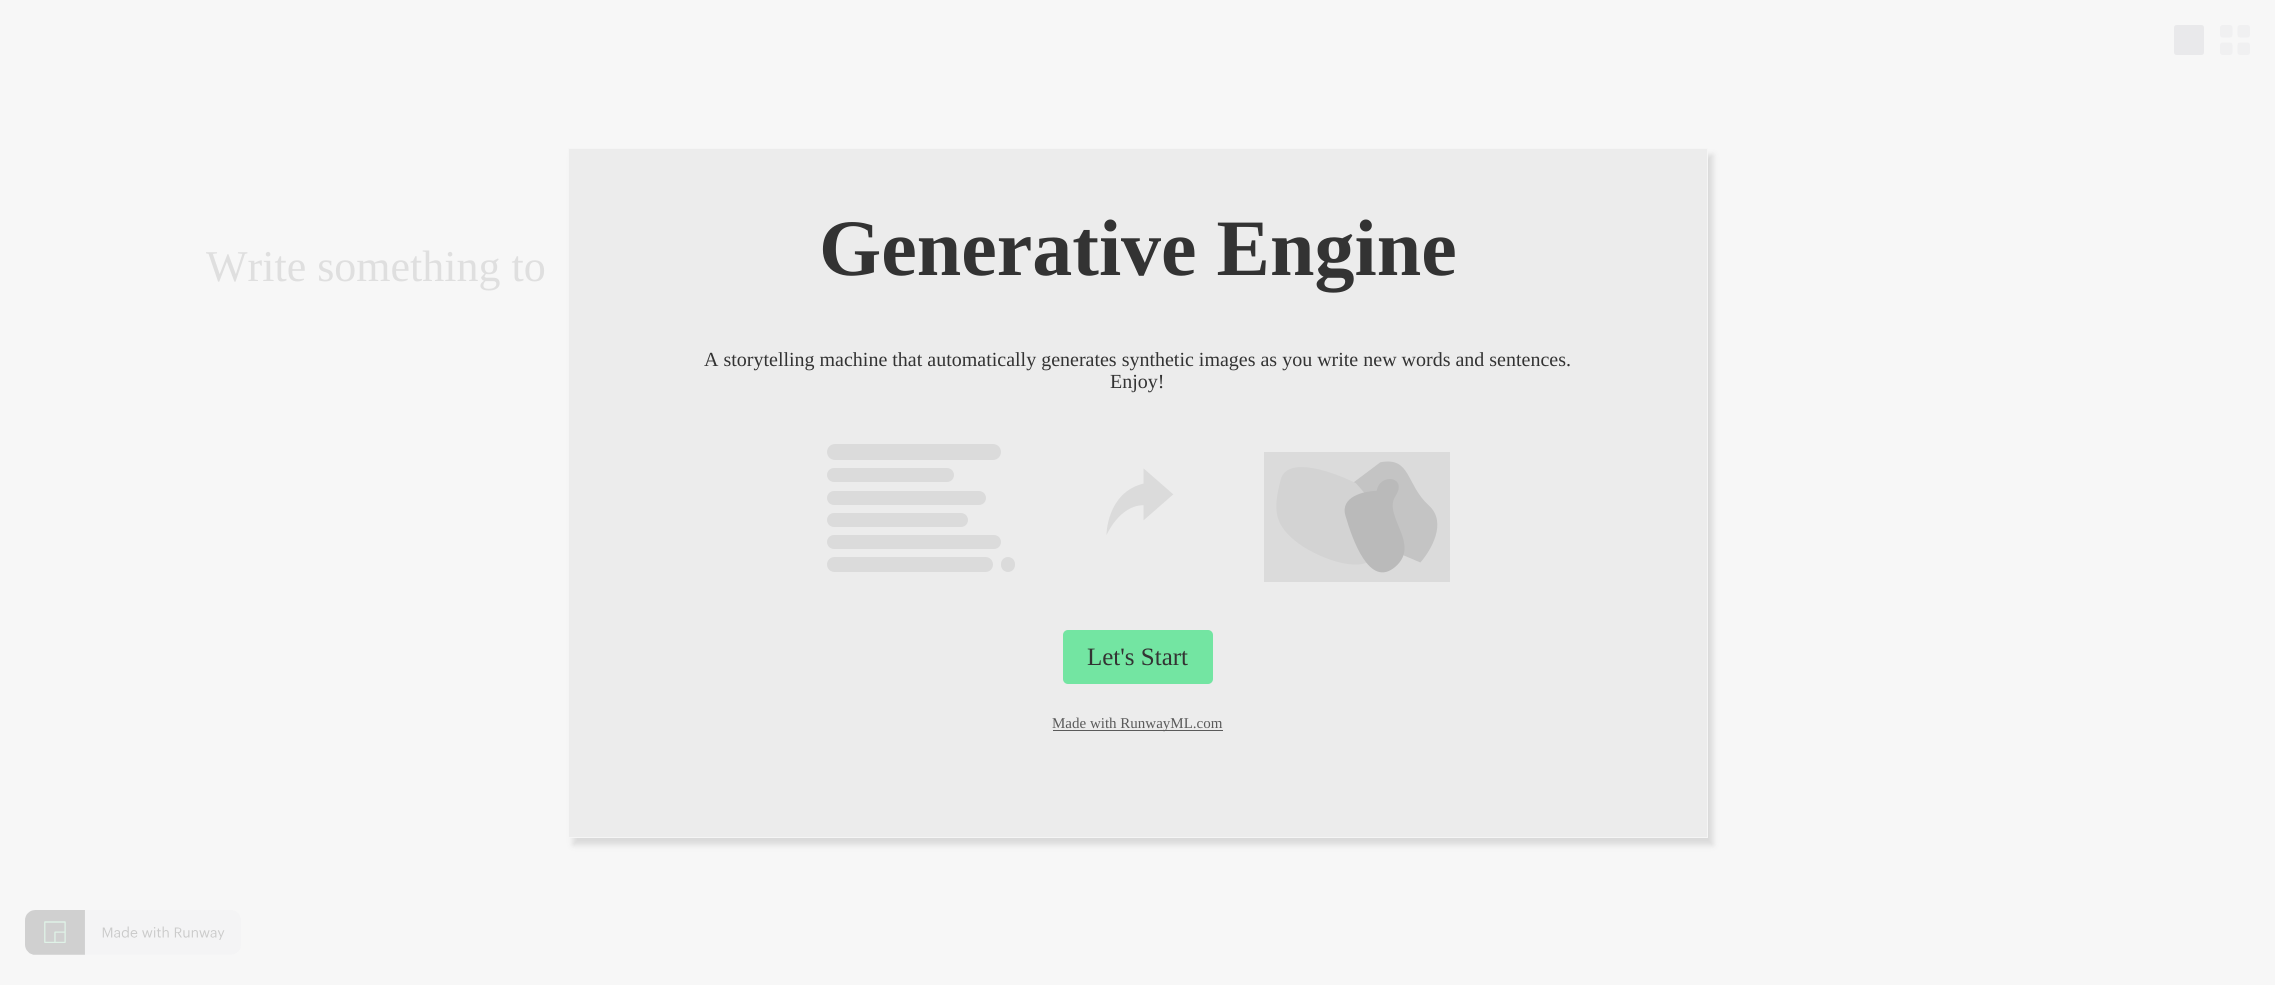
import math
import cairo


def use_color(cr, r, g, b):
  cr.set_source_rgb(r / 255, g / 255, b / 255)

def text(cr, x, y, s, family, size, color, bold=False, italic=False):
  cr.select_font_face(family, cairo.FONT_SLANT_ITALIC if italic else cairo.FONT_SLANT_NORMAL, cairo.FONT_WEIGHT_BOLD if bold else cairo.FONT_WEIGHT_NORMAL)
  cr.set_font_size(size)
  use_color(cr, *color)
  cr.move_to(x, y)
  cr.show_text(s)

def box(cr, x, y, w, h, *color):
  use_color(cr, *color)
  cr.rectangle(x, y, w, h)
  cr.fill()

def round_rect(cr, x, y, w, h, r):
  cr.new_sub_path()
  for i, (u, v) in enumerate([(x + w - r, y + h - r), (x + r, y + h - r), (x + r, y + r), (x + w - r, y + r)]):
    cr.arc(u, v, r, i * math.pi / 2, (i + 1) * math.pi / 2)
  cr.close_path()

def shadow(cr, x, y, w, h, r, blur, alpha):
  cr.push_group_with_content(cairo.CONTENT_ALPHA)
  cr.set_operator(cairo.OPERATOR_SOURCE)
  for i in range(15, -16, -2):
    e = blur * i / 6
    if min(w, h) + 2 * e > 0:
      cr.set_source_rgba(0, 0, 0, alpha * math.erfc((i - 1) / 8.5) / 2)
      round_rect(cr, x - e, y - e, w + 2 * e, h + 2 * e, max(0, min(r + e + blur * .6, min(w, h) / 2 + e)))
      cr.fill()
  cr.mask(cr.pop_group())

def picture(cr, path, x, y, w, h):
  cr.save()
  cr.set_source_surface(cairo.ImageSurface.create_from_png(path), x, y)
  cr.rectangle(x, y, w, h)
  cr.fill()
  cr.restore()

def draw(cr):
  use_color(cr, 247, 247, 247)
  cr.paint()
  picture(cr, "img_01.png", 2174, 25, 76, 30)
  picture(cr, "img_02.png", 25, 910, 216, 45)
  use_color(cr, 218, 218, 218)
  shadow(cr, 573, 155, 1140, 690, 0, 3, 1)
  use_color(cr, 236, 236, 236)
  cr.rectangle(568.5, 148.5, 1139, 689)
  cr.fill_preserve()
  use_color(cr, 245, 245, 245)
  cr.set_line_width(1)
  cr.stroke()
  picture(cr, "img_03.png", 827, 444, 623, 138)
  use_color(cr, 115, 229, 162)
  round_rect(cr, 1063, 630, 150, 54, 5)
  cr.fill()
  box(cr, 1053, 730, 170, 1, 90, 90, 90)
  text(cr, 206, 281, "Write something to", "Liberation Serif", 44, (223, 223, 223))
  text(cr, 819, 275, "Generative Engine", "Liberation Serif", 80, (51, 51, 51), bold=True)
  text(cr, 704, 366, "A storytelling machine that automatically generates synthetic images as you write new words and sentences.", "Liberation Serif", 20, (51, 51, 51))
  text(cr, 1110, 388, "Enjoy!", "Liberation Serif", 20, (51, 51, 51))
  text(cr, 1087, 665, "Let's Start", "Liberation Serif", 25, (51, 51, 51))
  text(cr, 1052, 728, "Made with RunwayML.com", "Liberation Serif", 15, (90, 90, 90))


surface = cairo.ImageSurface(cairo.FORMAT_RGB24, 2275, 985)
cr = cairo.Context(surface)
options = cairo.FontOptions()
options.set_hint_metrics(cairo.HINT_METRICS_OFF)
options.set_hint_style(cairo.HINT_STYLE_NONE)
cr.set_font_options(options)
cr.set_miter_limit(4)
draw(cr)
surface.write_to_png("out.png")
